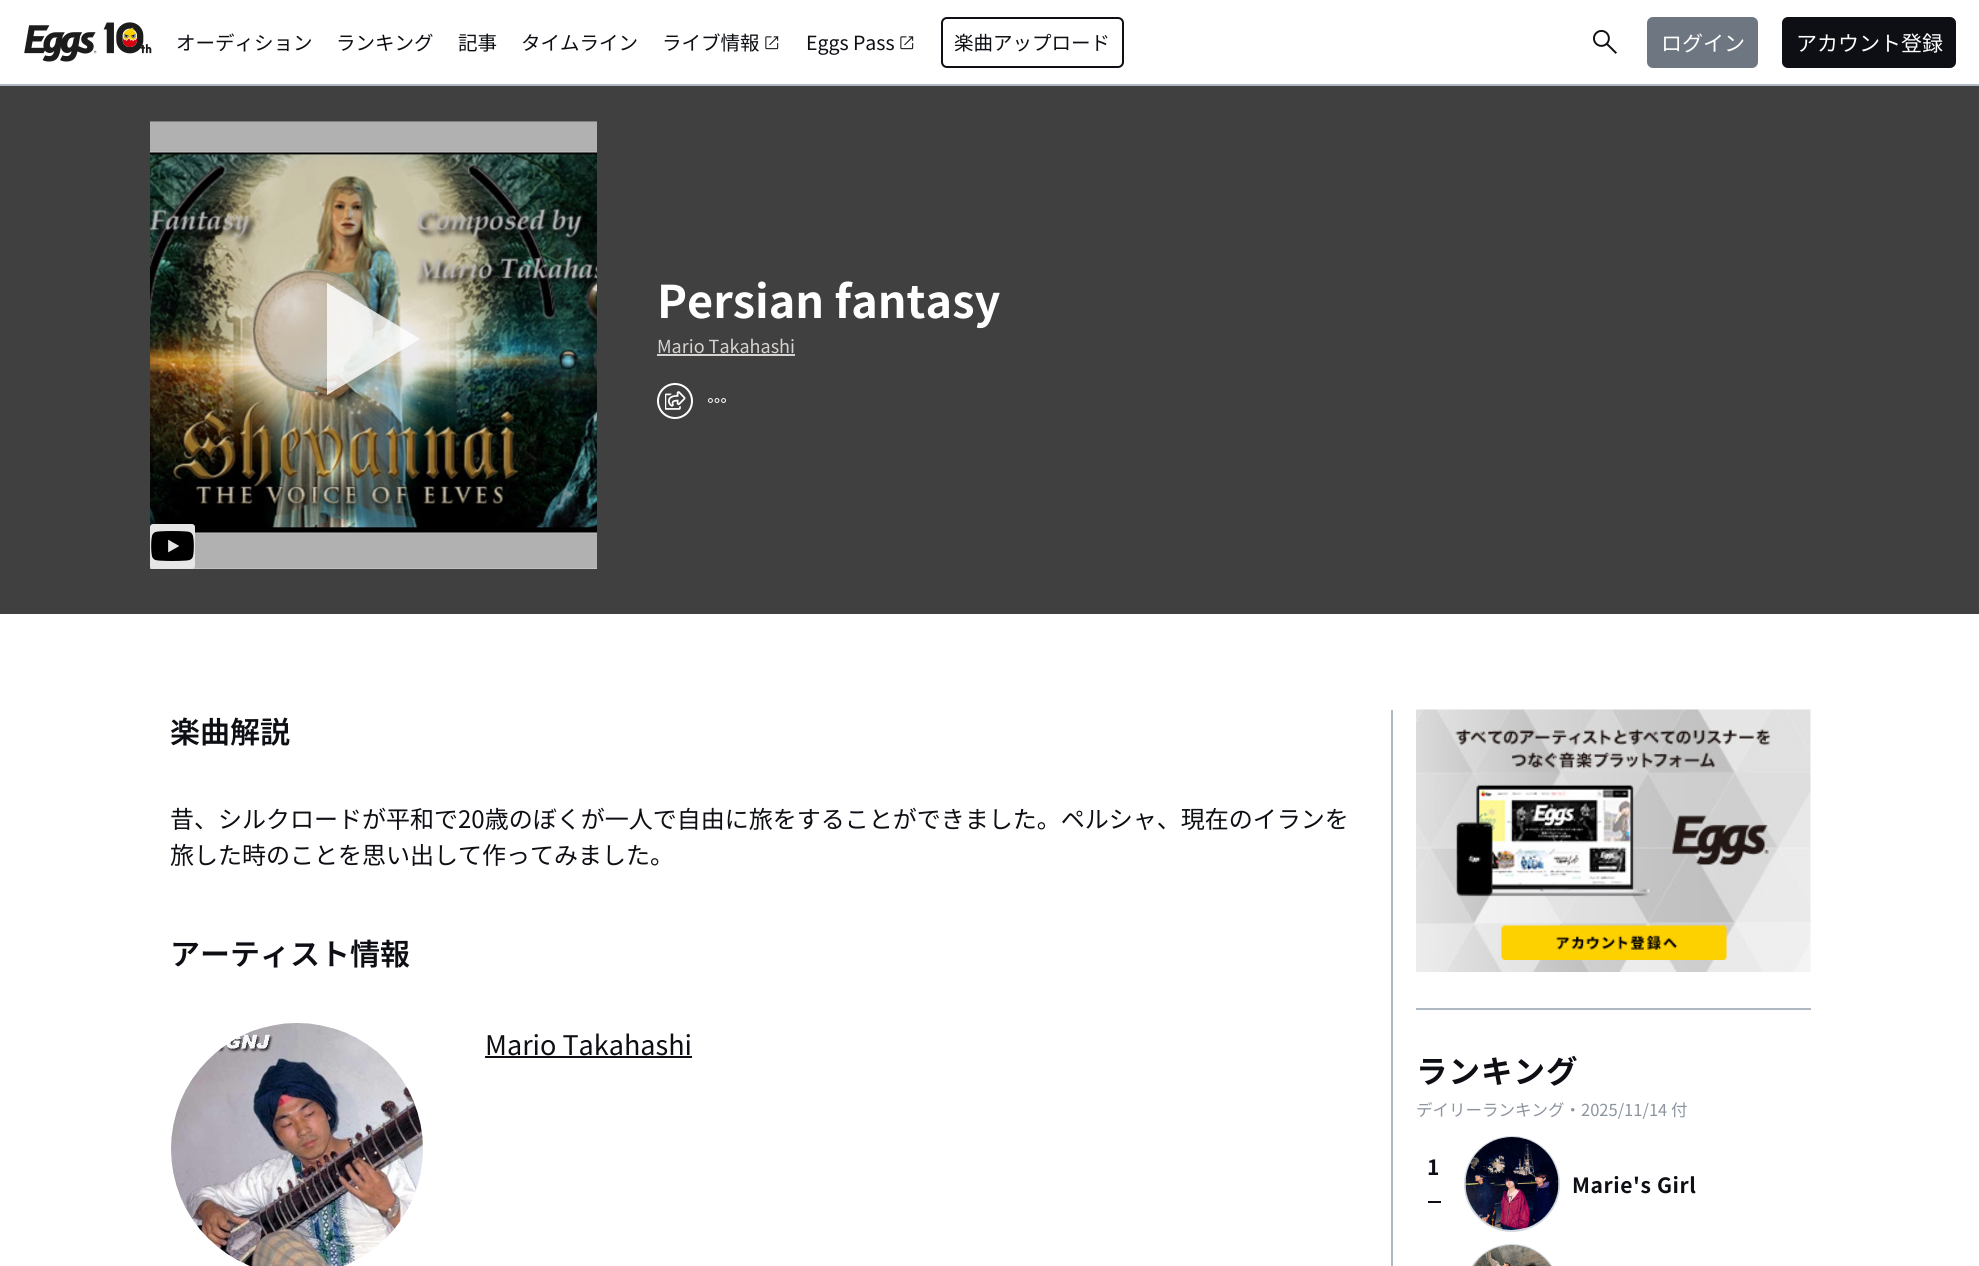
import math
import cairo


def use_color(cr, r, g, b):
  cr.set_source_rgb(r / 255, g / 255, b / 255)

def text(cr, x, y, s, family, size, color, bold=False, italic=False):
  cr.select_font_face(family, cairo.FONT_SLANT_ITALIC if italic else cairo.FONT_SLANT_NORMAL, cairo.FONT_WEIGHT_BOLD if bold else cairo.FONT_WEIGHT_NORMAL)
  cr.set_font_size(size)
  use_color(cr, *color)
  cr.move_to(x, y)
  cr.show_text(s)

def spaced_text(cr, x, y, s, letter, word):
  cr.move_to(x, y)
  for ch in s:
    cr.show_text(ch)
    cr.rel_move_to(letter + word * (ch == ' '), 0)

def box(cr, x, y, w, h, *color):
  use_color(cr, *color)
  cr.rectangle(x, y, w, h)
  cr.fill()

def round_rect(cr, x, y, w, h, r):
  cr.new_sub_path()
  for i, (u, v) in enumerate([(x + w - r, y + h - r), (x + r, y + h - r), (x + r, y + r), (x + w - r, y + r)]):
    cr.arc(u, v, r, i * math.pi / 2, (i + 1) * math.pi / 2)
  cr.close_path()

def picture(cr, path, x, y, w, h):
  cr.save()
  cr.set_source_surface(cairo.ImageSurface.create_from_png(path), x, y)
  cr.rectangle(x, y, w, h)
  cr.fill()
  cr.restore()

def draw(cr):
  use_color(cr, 255, 255, 255)
  cr.paint()
  box(cr, 0, 84, 1979, 2, 175, 184, 193)
  picture(cr, "img_01.png", 24, 22, 128, 40)
  picture(cr, "img_02.png", 765, 36, 14, 14)
  picture(cr, "img_02.png", 900, 36, 14, 14)
  round_rect(cr, 942, 18, 181, 49, 5)
  use_color(cr, 13, 15, 20)
  cr.stroke()
  picture(cr, "img_03.png", 1593, 30, 24, 24)
  use_color(cr, 110, 119, 129)
  round_rect(cr, 1648, 18, 109, 49, 5)
  cr.fill_preserve()
  cr.stroke()
  use_color(cr, 13, 15, 20)
  round_rect(cr, 1783, 18, 172, 49, 5)
  cr.fill_preserve()
  cr.stroke()
  box(cr, 0, 86, 1979, 528, 64, 64, 64)
  box(cr, 150, 568, 447, 1, 211, 213, 216)
  picture(cr, "img_04.png", 150, 121, 447, 448)
  cr.set_source_rgba(1, 1, 1, 0.8)
  cr.new_path()
  cr.move_to(327, 395)
  cr.line_to(420, 339)
  cr.line_to(327, 283)
  cr.close_path()
  cr.fill()
  use_color(cr, 230, 230, 230)
  round_rect(cr, 150, 524, 45, 45, 3)
  cr.fill()
  picture(cr, "img_05.png", 151, 531, 43, 30)
  box(cr, 657, 354, 138, 2, 214, 211, 209)
  cr.arc(675, 401, 17, 0, 2 * math.pi)
  use_color(cr, 255, 255, 255)
  cr.stroke()
  picture(cr, "img_06.png", 665, 391, 21, 19)
  picture(cr, "img_07.png", 708, 398, 18, 5)
  picture(cr, "img_08.png", 171, 1023, 252, 243)
  box(cr, 485, 1056, 207, 2, 13, 15, 20)
  box(cr, 1391, 710, 2, 556, 175, 184, 193)
  box(cr, 1416, 1008, 395, 2, 175, 184, 193)
  picture(cr, "img_09.png", 1416, 709, 395, 263)
  picture(cr, "img_10.png", 1501, 925, 226, 35)
  box(cr, 1428, 1201, 13, 2, 13, 15, 20)
  cr.arc(1512, 1184, 47, 0, 2 * math.pi)
  use_color(cr, 208, 215, 222)
  cr.stroke()
  picture(cr, "img_11.png", 1465, 1137, 94, 93)
  round_rect(cr, 1465, 1245, 94, 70, 47)
  cr.stroke()
  picture(cr, "img_12.png", 1473, 1245, 78, 21)
  text(cr, 176, 50, "オーディション", "Noto Sans JP", 19.5, (13, 15, 20))
  text(cr, 336, 50, "ランキング", "Noto Sans JP", 19.5, (13, 15, 20))
  text(cr, 458, 50, "記事", "Noto Sans JP", 19.5, (13, 15, 20))
  text(cr, 521, 50, "タイムライン", "Noto Sans JP", 19.5, (13, 15, 20))
  text(cr, 662, 50, "ライブ情報", "Noto Sans JP", 19.5, (13, 15, 20))
  text(cr, 806, 50, "Eggs Pass", "Noto Sans JP", 19.5, (13, 15, 20))
  text(cr, 954, 50, "楽曲アップロード", "Noto Sans JP", 19.5, (13, 15, 20))
  text(cr, 1661, 51, "ログイン", "Noto Sans JP", 21, (255, 255, 255))
  text(cr, 1796, 51, "アカウント登録", "Noto Sans JP", 21, (255, 255, 255))
  text(cr, 657, 318, "Persian fantasy", "Noto Sans JP", 45, (255, 255, 255), bold=True)
  text(cr, 657, 353, "Mario Takahashi", "Noto Sans JP", 18, (214, 211, 209))
  text(cr, 170, 743, "楽曲解説", "Noto Sans JP SemiBold", 30, (13, 15, 20))
  text(cr, 170, 828, "昔、シルクロードが平和で20歳のぼくが一人で自由に旅をすることができました。ペルシャ、現在のイランを", "Noto Sans JP", 24, (13, 15, 20))
  text(cr, 170, 864, "旅した時のことを思い出して作ってみました。", "Noto Sans JP", 24, (13, 15, 20))
  text(cr, 170, 965, "アーティスト情報", "Noto Sans JP SemiBold", 30, (13, 15, 20))
  text(cr, 485, 1055, "Mario Takahashi", "Noto Sans JP", 27, (13, 15, 20))
  cr.select_font_face("Noto Sans JP", cairo.FONT_SLANT_NORMAL, cairo.FONT_WEIGHT_BOLD)
  cr.set_font_size(31.5)
  spaced_text(cr, 1416, 1083, "ランキング", 1, 0)
  text(cr, 1416, 1116, "デイリーランキング・2025/11/14 付", "Noto Sans JP", 16.5, (140, 149, 159))
  cr.select_font_face("Noto Sans JP", cairo.FONT_SLANT_NORMAL, cairo.FONT_WEIGHT_BOLD)
  cr.set_font_size(21)
  use_color(cr, 13, 15, 20)
  spaced_text(cr, 1427, 1175, "1", 0.6, 0)
  spaced_text(cr, 1572, 1193, "Marie's Girl", 0.6, 0)


surface = cairo.ImageSurface(cairo.FORMAT_RGB24, 1979, 1266)
cr = cairo.Context(surface)
options = cairo.FontOptions()
options.set_hint_metrics(cairo.HINT_METRICS_OFF)
options.set_hint_style(cairo.HINT_STYLE_NONE)
cr.set_font_options(options)
cr.set_miter_limit(4)
draw(cr)
surface.write_to_png("out.png")
